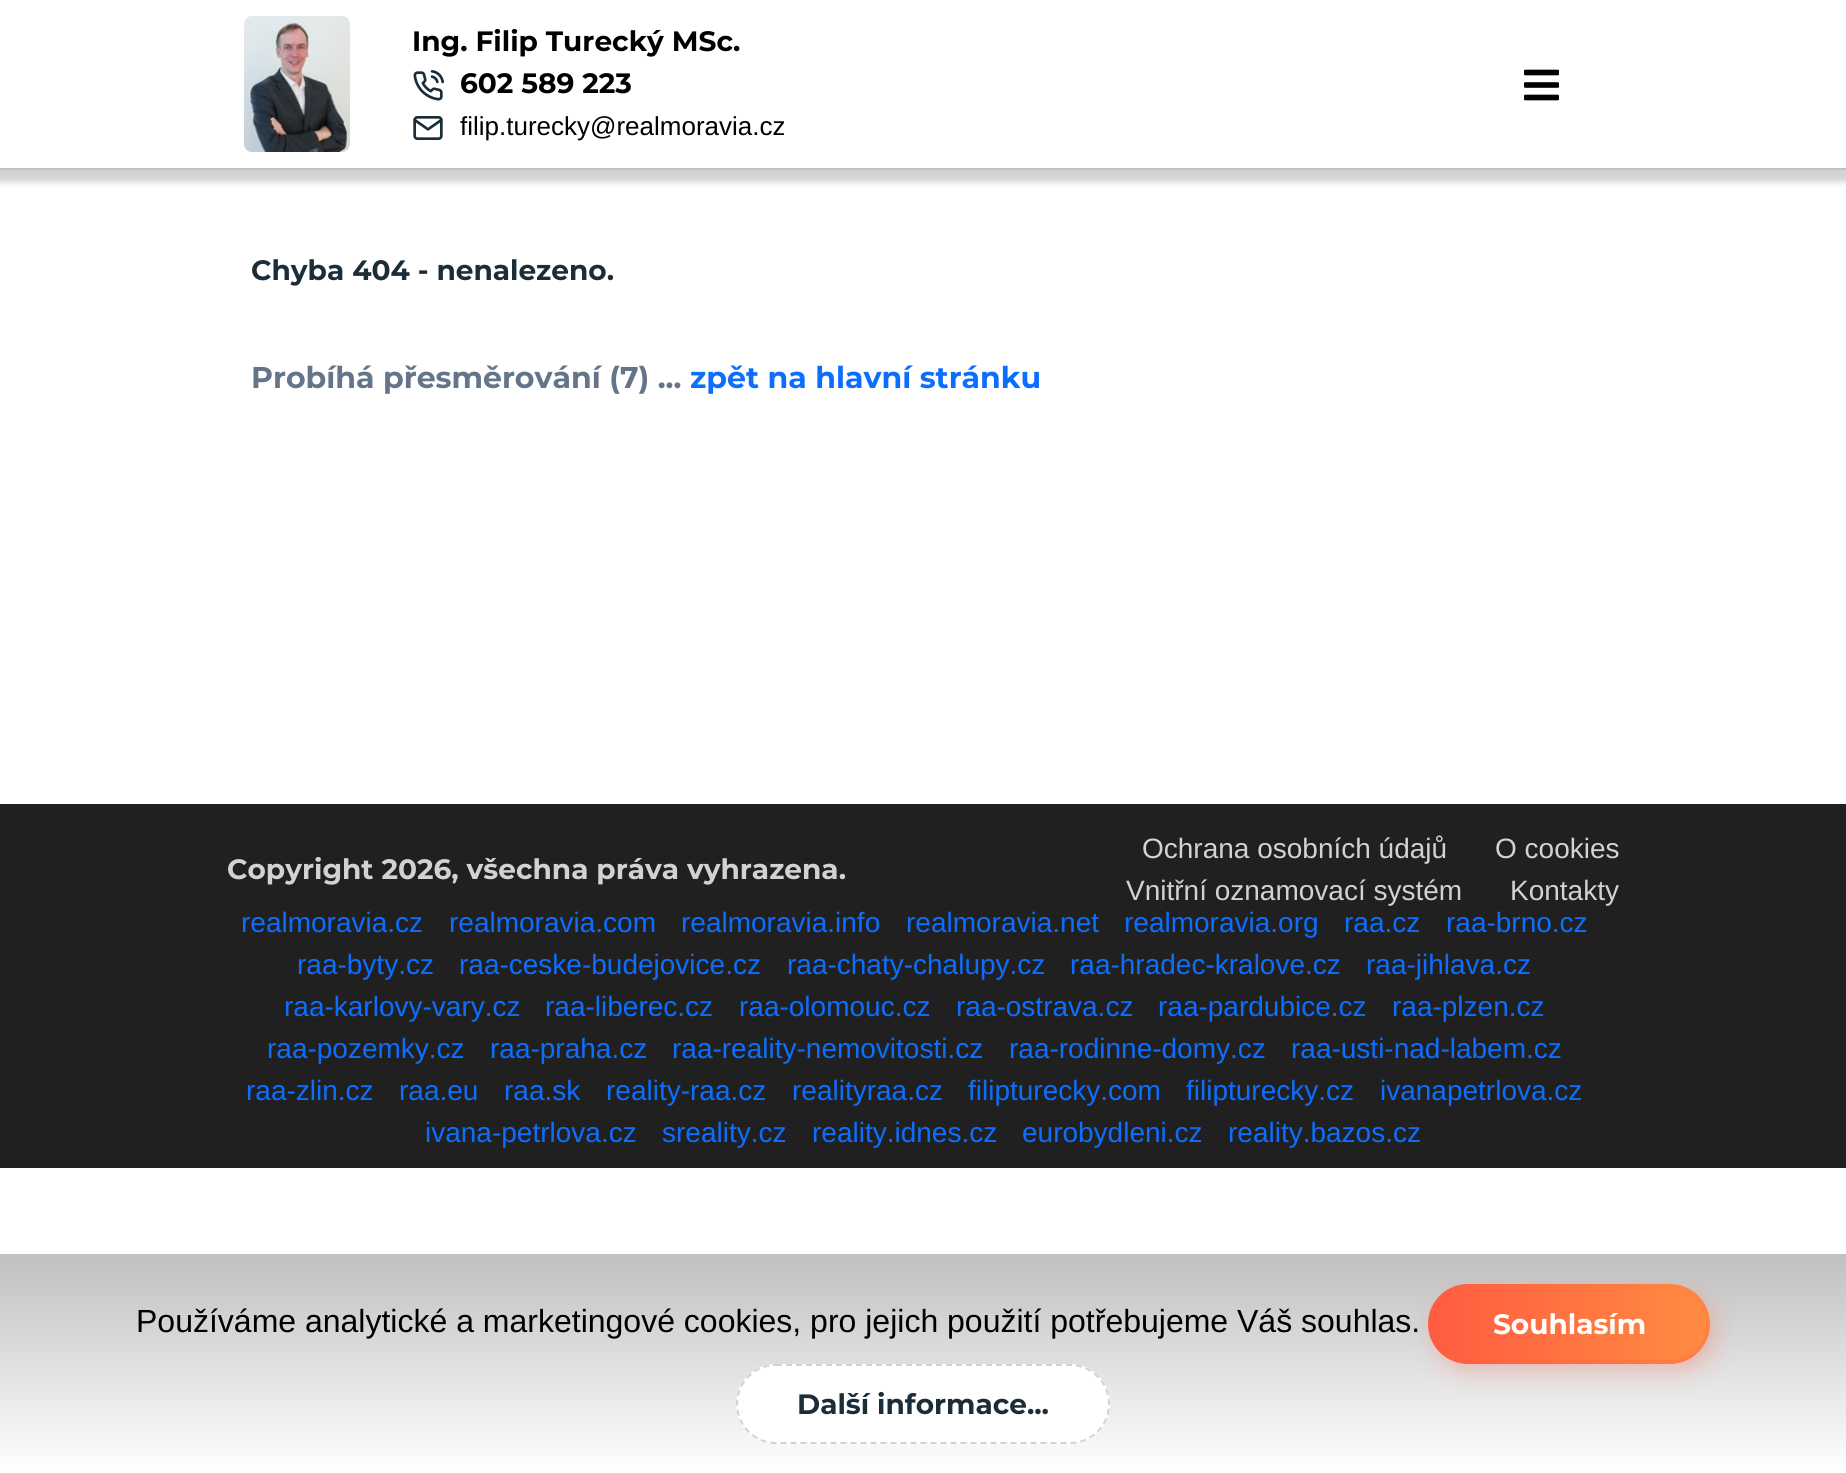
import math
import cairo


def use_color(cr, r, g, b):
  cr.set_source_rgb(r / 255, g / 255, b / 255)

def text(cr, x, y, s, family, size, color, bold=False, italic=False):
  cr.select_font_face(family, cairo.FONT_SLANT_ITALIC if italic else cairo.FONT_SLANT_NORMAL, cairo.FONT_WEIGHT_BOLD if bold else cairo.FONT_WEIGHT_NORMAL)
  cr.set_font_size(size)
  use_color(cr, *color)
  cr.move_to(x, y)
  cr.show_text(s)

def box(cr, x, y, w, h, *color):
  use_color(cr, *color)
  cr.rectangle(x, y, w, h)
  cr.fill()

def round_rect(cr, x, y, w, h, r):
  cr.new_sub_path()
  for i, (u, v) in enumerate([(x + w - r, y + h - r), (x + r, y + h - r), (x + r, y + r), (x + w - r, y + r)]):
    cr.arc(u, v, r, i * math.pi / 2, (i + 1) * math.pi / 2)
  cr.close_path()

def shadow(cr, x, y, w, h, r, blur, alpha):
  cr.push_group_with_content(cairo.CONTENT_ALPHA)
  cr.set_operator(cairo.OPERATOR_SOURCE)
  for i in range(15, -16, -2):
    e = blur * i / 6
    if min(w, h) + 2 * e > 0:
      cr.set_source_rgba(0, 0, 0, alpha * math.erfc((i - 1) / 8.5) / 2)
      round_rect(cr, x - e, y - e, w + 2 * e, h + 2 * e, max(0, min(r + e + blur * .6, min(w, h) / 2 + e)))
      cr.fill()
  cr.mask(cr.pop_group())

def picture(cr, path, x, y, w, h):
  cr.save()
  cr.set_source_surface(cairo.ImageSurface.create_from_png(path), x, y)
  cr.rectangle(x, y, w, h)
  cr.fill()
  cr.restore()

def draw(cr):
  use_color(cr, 255, 255, 255)
  cr.paint()
  cr.save()
  cr.rectangle(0, 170, 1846, 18)
  cr.clip()
  use_color(cr, 211, 211, 211)
  shadow(cr, -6, 0, 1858, 182, 0, 3, 1)
  cr.restore()
  box(cr, 0, 168, 1846, 2, 192, 192, 192)
  picture(cr, "img_01.png", 244, 16, 106, 136)
  picture(cr, "img_02.png", 413, 70, 31, 31)
  picture(cr, "img_03.png", 413, 116, 30, 24)
  picture(cr, "img_04.png", 1524, 69, 35, 32)
  box(cr, 0, 804, 1846, 364, 32, 32, 32)
  gradient = cairo.LinearGradient(923, 1254, 923, 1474)
  gradient.add_color_stop_rgba(0, 0.753, 0.753, 0.753, 1)
  gradient.add_color_stop_rgba(1, 1, 1, 1, 1)
  cr.set_source(gradient)
  cr.rectangle(0, 1254, 1846, 211)
  cr.fill()
  cr.save()
  round_rect(cr, 1428, 1284, 282, 80, 40)
  cr.clip()
  gradient = cairo.LinearGradient(884, 1324, 1432, 1324)
  gradient.add_color_stop_rgba(0, 1, 0.361, 0.255, 1)
  gradient.add_color_stop_rgba(0.51, 1, 0.549, 0.255, 1)
  gradient.add_color_stop_rgba(1, 1, 0.361, 0.255, 1)
  cr.set_source(gradient)
  cr.rectangle(1428, 1306, 4, 36)
  cr.fill()
  gradient = cairo.LinearGradient(1432, 1324, 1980, 1324)
  gradient.add_color_stop_rgba(0, 1, 0.361, 0.255, 1)
  gradient.add_color_stop_rgba(0.51, 1, 0.549, 0.255, 1)
  gradient.add_color_stop_rgba(1, 1, 0.361, 0.255, 1)
  cr.set_source(gradient)
  cr.new_path()
  cr.move_to(1432, 1284)
  cr.line_to(1670, 1284)
  cr.curve_to(1692, 1284, 1710, 1302, 1710, 1324)
  cr.curve_to(1710, 1346, 1692, 1364, 1670, 1364)
  cr.line_to(1432, 1364)
  cr.close_path()
  cr.fill()
  cr.restore()
  cr.save()
  cr.set_fill_rule(cairo.FILL_RULE_EVEN_ODD)
  cr.new_path()
  cr.move_to(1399, 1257)
  cr.line_to(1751, 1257)
  cr.line_to(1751, 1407)
  cr.line_to(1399, 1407)
  cr.close_path()
  cr.move_to(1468, 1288)
  cr.line_to(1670, 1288)
  cr.curve_to(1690, 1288, 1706, 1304, 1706, 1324)
  cr.curve_to(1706, 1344, 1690, 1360, 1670, 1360)
  cr.line_to(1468, 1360)
  cr.curve_to(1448, 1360, 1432, 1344, 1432, 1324)
  cr.curve_to(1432, 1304, 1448, 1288, 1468, 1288)
  cr.close_path()
  cr.clip()
  use_color(cr, 255, 92, 65)
  shadow(cr, 1438, 1296, 274, 72, 36, 12.5, 0.35)
  cr.restore()
  use_color(cr, 255, 255, 255)
  round_rect(cr, 736, 1364, 374, 80, 40)
  cr.fill()
  cr.new_path()
  cr.move_to(776, 1365)
  cr.line_to(1070, 1365)
  cr.curve_to(1091.5, 1365, 1109, 1382.5, 1109, 1404)
  cr.curve_to(1109, 1425.5, 1091.5, 1443, 1070, 1443)
  cr.line_to(776, 1443)
  cr.curve_to(754.5, 1443, 737, 1425.5, 737, 1404)
  cr.curve_to(737, 1382.5, 754.5, 1365, 776, 1365)
  cr.close_path()
  use_color(cr, 210, 210, 210)
  cr.set_dash([6, 4])
  cr.stroke()
  text(cr, 412, 51, "Ing. Filip Turecký MSc.", "Montserrat", 28, (0, 0, 0), bold=True)
  text(cr, 460, 93, "602 589 223", "Montserrat", 28, (0, 0, 0), bold=True)
  text(cr, 460, 135, "filip.turecky@realmoravia.cz", "Liberation Sans", 26, (0, 0, 0))
  text(cr, 251, 280, "Chyba 404 - nenalezeno.", "Montserrat", 28, (28, 45, 58), bold=True)
  text(cr, 251, 388, "Probíhá přesměrování (7) ...", "Montserrat", 30, (100, 117, 137), bold=True)
  text(cr, 690, 388, "zpět na hlavní stránku", "Montserrat", 30, (13, 110, 253), bold=True)
  text(cr, 227, 879, "Copyright 2026, všechna práva vyhrazena.", "Montserrat", 28, (210, 210, 210), bold=True)
  text(cr, 1142, 858, "Ochrana osobních údajů", "Liberation Sans", 28, (210, 210, 210))
  text(cr, 1495, 858, "O cookies", "Liberation Sans", 28, (210, 210, 210))
  text(cr, 1126, 900, "Vnitřní oznamovací systém", "Liberation Sans", 28, (210, 210, 210))
  text(cr, 1510, 900, "Kontakty", "Liberation Sans", 28, (210, 210, 210))
  text(cr, 241, 932, "realmoravia.cz", "Liberation Sans", 28, (13, 110, 253))
  text(cr, 449, 932, "realmoravia.com", "Liberation Sans", 28, (13, 110, 253))
  text(cr, 681, 932, "realmoravia.info", "Liberation Sans", 28, (13, 110, 253))
  text(cr, 906, 932, "realmoravia.net", "Liberation Sans", 28, (13, 110, 253))
  text(cr, 1124, 932, "realmoravia.org", "Liberation Sans", 28, (13, 110, 253))
  text(cr, 1344, 932, "raa.cz", "Liberation Sans", 28, (13, 110, 253))
  text(cr, 1446, 932, "raa-brno.cz", "Liberation Sans", 28, (13, 110, 253))
  text(cr, 297, 974, "raa-byty.cz", "Liberation Sans", 28, (13, 110, 253))
  text(cr, 459, 974, "raa-ceske-budejovice.cz", "Liberation Sans", 28, (13, 110, 253))
  text(cr, 787, 974, "raa-chaty-chalupy.cz", "Liberation Sans", 28, (13, 110, 253))
  text(cr, 1070, 974, "raa-hradec-kralove.cz", "Liberation Sans", 28, (13, 110, 253))
  text(cr, 1366, 974, "raa-jihlava.cz", "Liberation Sans", 28, (13, 110, 253))
  text(cr, 284, 1016, "raa-karlovy-vary.cz", "Liberation Sans", 28, (13, 110, 253))
  text(cr, 545, 1016, "raa-liberec.cz", "Liberation Sans", 28, (13, 110, 253))
  text(cr, 739, 1016, "raa-olomouc.cz", "Liberation Sans", 28, (13, 110, 253))
  text(cr, 956, 1016, "raa-ostrava.cz", "Liberation Sans", 28, (13, 110, 253))
  text(cr, 1158, 1016, "raa-pardubice.cz", "Liberation Sans", 28, (13, 110, 253))
  text(cr, 1392, 1016, "raa-plzen.cz", "Liberation Sans", 28, (13, 110, 253))
  text(cr, 267, 1058, "raa-pozemky.cz", "Liberation Sans", 28, (13, 110, 253))
  text(cr, 490, 1058, "raa-praha.cz", "Liberation Sans", 28, (13, 110, 253))
  text(cr, 672, 1058, "raa-reality-nemovitosti.cz", "Liberation Sans", 28, (13, 110, 253))
  text(cr, 1009, 1058, "raa-rodinne-domy.cz", "Liberation Sans", 28, (13, 110, 253))
  text(cr, 1291, 1058, "raa-usti-nad-labem.cz", "Liberation Sans", 28, (13, 110, 253))
  text(cr, 246, 1100, "raa-zlin.cz", "Liberation Sans", 28, (13, 110, 253))
  text(cr, 399, 1100, "raa.eu", "Liberation Sans", 28, (13, 110, 253))
  text(cr, 504, 1100, "raa.sk", "Liberation Sans", 28, (13, 110, 253))
  text(cr, 606, 1100, "reality-raa.cz", "Liberation Sans", 28, (13, 110, 253))
  text(cr, 792, 1100, "realityraa.cz", "Liberation Sans", 28, (13, 110, 253))
  text(cr, 968, 1100, "filipturecky.com", "Liberation Sans", 28, (13, 110, 253))
  text(cr, 1186, 1100, "filipturecky.cz", "Liberation Sans", 28, (13, 110, 253))
  text(cr, 1380, 1100, "ivanapetrlova.cz", "Liberation Sans", 28, (13, 110, 253))
  text(cr, 425, 1142, "ivana-petrlova.cz", "Liberation Sans", 28, (13, 110, 253))
  text(cr, 662, 1142, "sreality.cz", "Liberation Sans", 28, (13, 110, 253))
  text(cr, 812, 1142, "reality.idnes.cz", "Liberation Sans", 28, (13, 110, 253))
  text(cr, 1022, 1142, "eurobydleni.cz", "Liberation Sans", 28, (13, 110, 253))
  text(cr, 1228, 1142, "reality.bazos.cz", "Liberation Sans", 28, (13, 110, 253))
  text(cr, 136, 1332, "Používáme analytické a marketingové cookies, pro jejich použití potřebujeme Váš souhlas.", "Liberation Sans", 32, (0, 0, 0))
  text(cr, 1493, 1334, "Souhlasím", "Montserrat", 28, (255, 255, 255), bold=True)
  text(cr, 797, 1414, "Další informace...", "Montserrat", 28, (28, 45, 58), bold=True)


surface = cairo.ImageSurface(cairo.FORMAT_RGB24, 1846, 1473)
cr = cairo.Context(surface)
options = cairo.FontOptions()
options.set_hint_metrics(cairo.HINT_METRICS_OFF)
options.set_hint_style(cairo.HINT_STYLE_NONE)
cr.set_font_options(options)
cr.set_miter_limit(4)
draw(cr)
surface.write_to_png("out.png")
